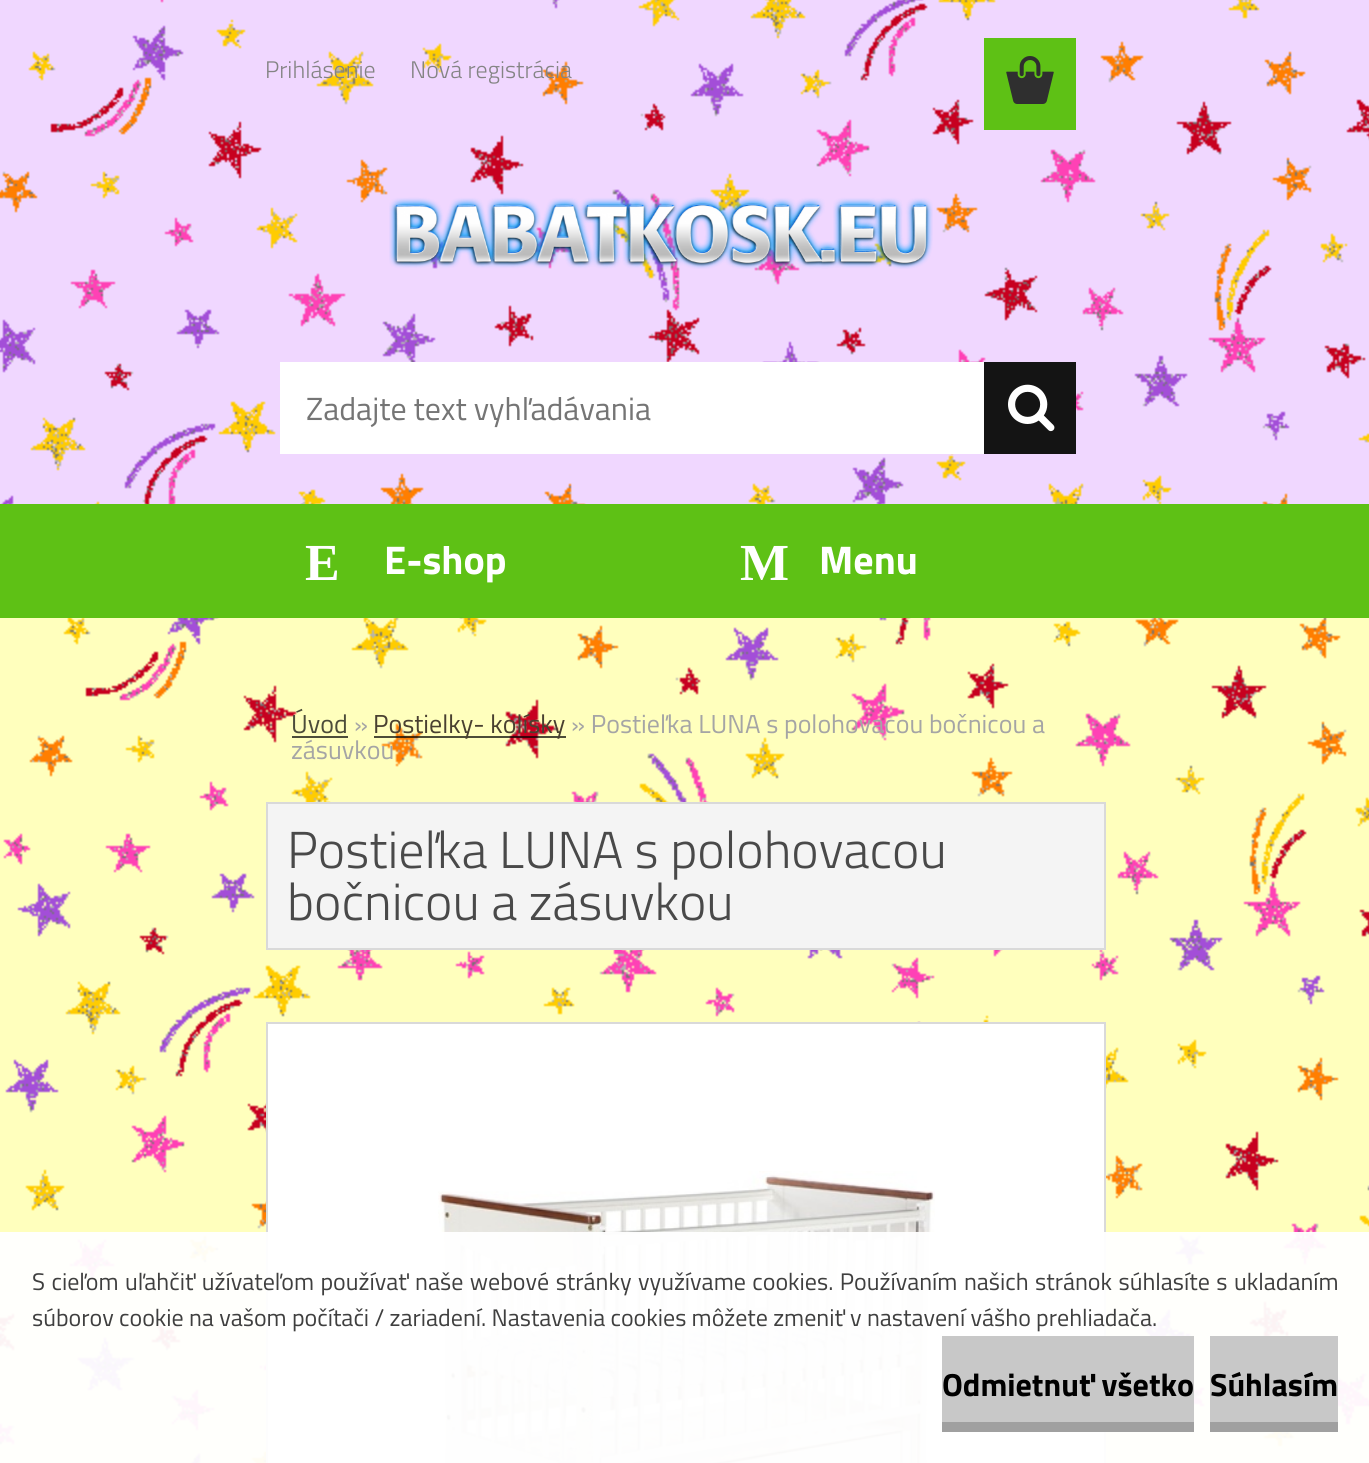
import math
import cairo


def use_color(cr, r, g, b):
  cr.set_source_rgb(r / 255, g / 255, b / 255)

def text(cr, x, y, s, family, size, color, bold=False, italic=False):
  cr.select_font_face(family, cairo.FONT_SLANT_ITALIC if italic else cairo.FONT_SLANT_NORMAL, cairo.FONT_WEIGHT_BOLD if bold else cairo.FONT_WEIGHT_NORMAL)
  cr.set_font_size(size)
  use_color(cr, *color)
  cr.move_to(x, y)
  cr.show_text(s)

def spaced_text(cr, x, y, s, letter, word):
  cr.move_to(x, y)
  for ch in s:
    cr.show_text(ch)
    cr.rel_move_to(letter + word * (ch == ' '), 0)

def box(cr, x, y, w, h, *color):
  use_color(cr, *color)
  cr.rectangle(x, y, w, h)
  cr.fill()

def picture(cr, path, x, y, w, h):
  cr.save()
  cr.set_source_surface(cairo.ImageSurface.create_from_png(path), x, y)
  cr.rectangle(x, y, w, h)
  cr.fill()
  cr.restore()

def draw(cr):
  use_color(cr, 255, 255, 189)
  cr.paint()
  picture(cr, "img_01.png", 0, 618, 1369, 845)
  box(cr, 0, 0, 1369, 504, 240, 215, 255)
  picture(cr, "img_04.png", 0, 0, 1369, 504)
  box(cr, 984, 38, 92, 92, 94, 193, 21)
  picture(cr, "img_02.png", 1006, 56, 48, 48)
  box(cr, 292, 736, 56, 2, 77, 77, 57)
  cr.set_source_rgba(0, 0, 0, 0.7)
  cr.rectangle(374, 736, 192, 2)
  cr.fill()
  use_color(cr, 244, 244, 244)
  cr.rectangle(267, 803, 838, 146)
  cr.fill_preserve()
  use_color(cr, 217, 217, 217)
  cr.stroke()
  cr.rectangle(267, 1023, 838, 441)
  cr.stroke()
  box(cr, 268, 1024, 836, 439, 255, 255, 255)
  picture(cr, "img_03.png", 438, 1171, 497, 292)
  box(cr, 0, 504, 1369, 114, 94, 193, 21)
  picture(cr, "img_05.png", 389, 197, 544, 72)
  box(cr, 280, 362, 704, 92, 255, 255, 255)
  box(cr, 984, 362, 92, 92, 20, 20, 20)
  picture(cr, "img_06.png", 1008, 384, 47, 48)
  cr.set_source_rgba(1, 1, 1, 0.95)
  cr.rectangle(0, 1232, 1369, 231)
  cr.fill()
  box(cr, 942, 1336, 252, 86, 200, 200, 200)
  box(cr, 942, 1422, 252, 10, 160, 160, 160)
  box(cr, 1210, 1336, 128, 86, 200, 200, 200)
  box(cr, 1210, 1422, 128, 10, 160, 160, 160)
  text(cr, 265, 78, "Prihlásenie", "Titillium Web Light", 24, (132, 132, 132))
  text(cr, 410, 78, "Nová registrácia", "Titillium Web Light", 24, (132, 132, 132))
  text(cr, 305, 580, "E", "Liberation Serif", 52, (255, 255, 255), bold=True)
  text(cr, 384, 574, "E-shop", "Titillium Web", 40, (255, 255, 255), bold=True)
  text(cr, 740, 580, "M", "Liberation Serif", 52, (255, 255, 255), bold=True)
  text(cr, 819, 574, "Menu", "Titillium Web", 40, (255, 255, 255), bold=True)
  text(cr, 291, 733, "Úvod", "Titillium Web", 26, (76, 76, 57))
  text(cr, 354, 733, "»", "Titillium Web", 26, (165, 165, 165))
  text(cr, 373, 733, "Postielky- kolísky", "Titillium Web", 26, (73, 64, 48))
  text(cr, 571, 733, "» Postieľka LUNA s polohovacou bočnicou a", "Titillium Web", 26, (165, 165, 165))
  text(cr, 291, 759, "zásuvkou", "Titillium Web", 26, (165, 165, 165))
  text(cr, 287, 868, "Postieľka LUNA s polohovacou", "Titillium Web Light", 52, (73, 73, 73))
  text(cr, 287, 920, "bočnicou a zásuvkou", "Titillium Web Light", 52, (73, 73, 73))
  text(cr, 306, 420, "Zadajte text vyhľadávania", "Titillium Web", 32, (117, 117, 117))
  cr.set_font_size(24)
  use_color(cr, 63, 63, 63)
  spaced_text(cr, 32, 1290, "S cieľom uľahčiť užívateľom používať naše webové stránky využívame cookies. Používaním našich stránok súhlasíte s ukladaním", 0, 1.2)
  text(cr, 32, 1326, "súborov cookie na vašom počítači / zariadení. Nastavenia cookies môžete zmeniť v nastavení vášho prehliadača.", "Titillium Web", 24, (63, 63, 63))
  text(cr, 942, 1396, "Odmietnuť všetko", "Titillium Web", 32, (0, 0, 0), bold=True)
  text(cr, 1210, 1396, "Súhlasím", "Titillium Web", 32, (0, 0, 0), bold=True)


surface = cairo.ImageSurface(cairo.FORMAT_RGB24, 1369, 1463)
cr = cairo.Context(surface)
options = cairo.FontOptions()
options.set_hint_metrics(cairo.HINT_METRICS_OFF)
options.set_hint_style(cairo.HINT_STYLE_NONE)
cr.set_font_options(options)
cr.set_miter_limit(4)
draw(cr)
surface.write_to_png("out.png")
